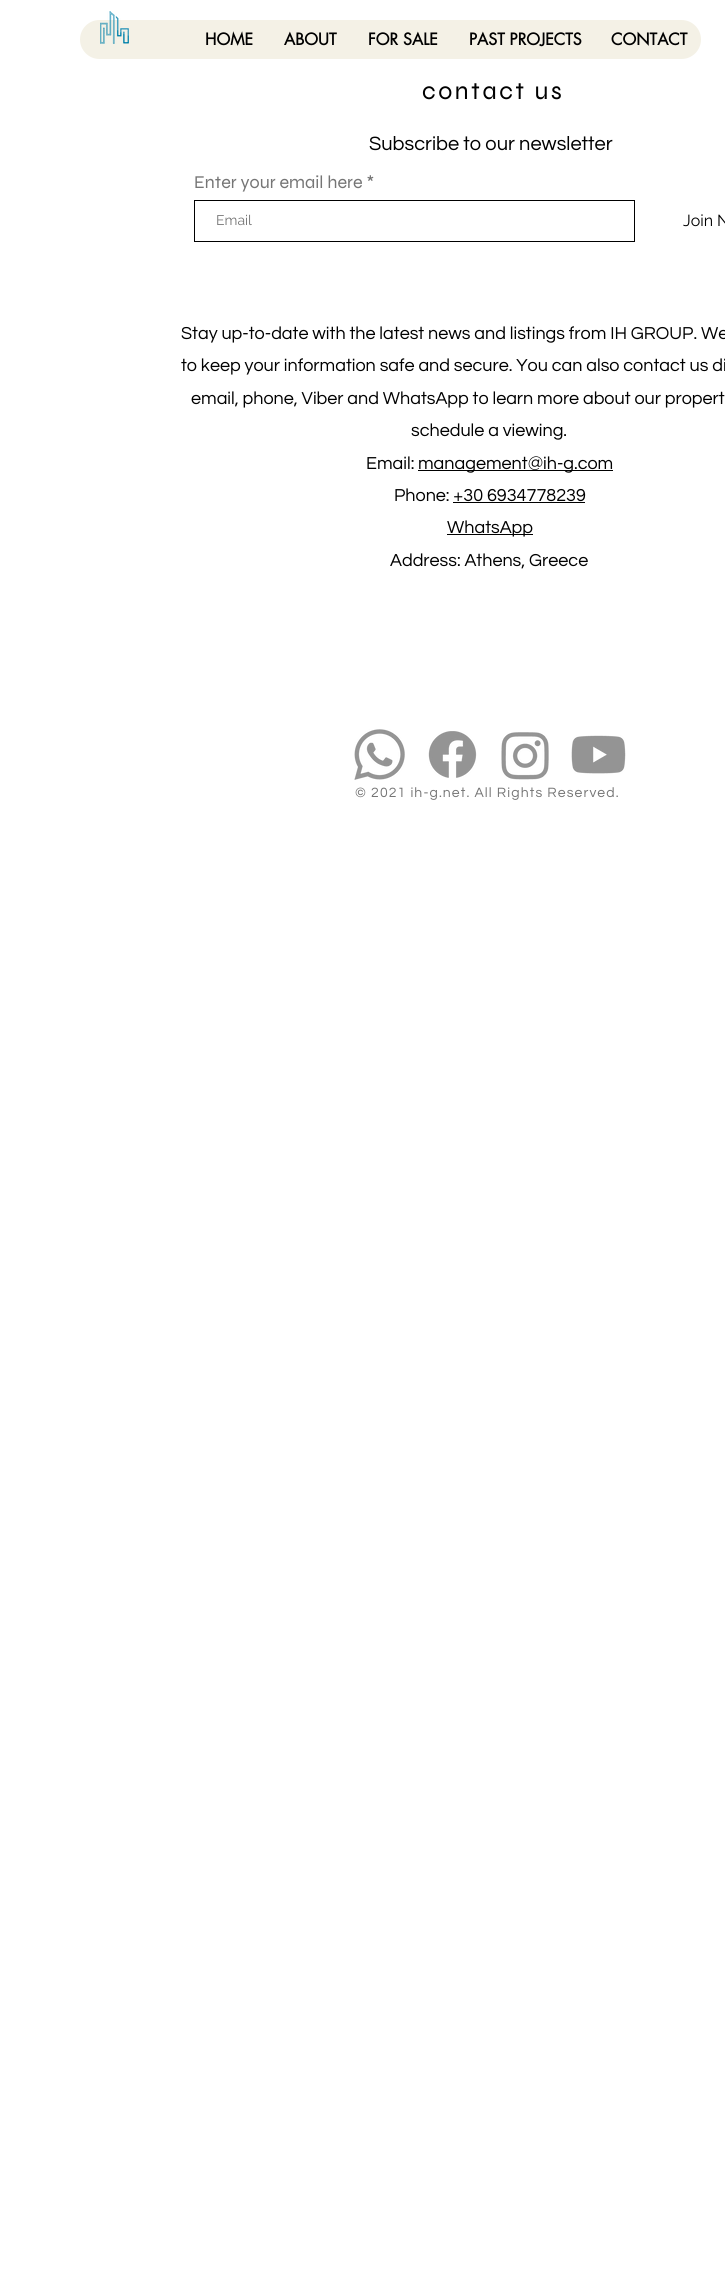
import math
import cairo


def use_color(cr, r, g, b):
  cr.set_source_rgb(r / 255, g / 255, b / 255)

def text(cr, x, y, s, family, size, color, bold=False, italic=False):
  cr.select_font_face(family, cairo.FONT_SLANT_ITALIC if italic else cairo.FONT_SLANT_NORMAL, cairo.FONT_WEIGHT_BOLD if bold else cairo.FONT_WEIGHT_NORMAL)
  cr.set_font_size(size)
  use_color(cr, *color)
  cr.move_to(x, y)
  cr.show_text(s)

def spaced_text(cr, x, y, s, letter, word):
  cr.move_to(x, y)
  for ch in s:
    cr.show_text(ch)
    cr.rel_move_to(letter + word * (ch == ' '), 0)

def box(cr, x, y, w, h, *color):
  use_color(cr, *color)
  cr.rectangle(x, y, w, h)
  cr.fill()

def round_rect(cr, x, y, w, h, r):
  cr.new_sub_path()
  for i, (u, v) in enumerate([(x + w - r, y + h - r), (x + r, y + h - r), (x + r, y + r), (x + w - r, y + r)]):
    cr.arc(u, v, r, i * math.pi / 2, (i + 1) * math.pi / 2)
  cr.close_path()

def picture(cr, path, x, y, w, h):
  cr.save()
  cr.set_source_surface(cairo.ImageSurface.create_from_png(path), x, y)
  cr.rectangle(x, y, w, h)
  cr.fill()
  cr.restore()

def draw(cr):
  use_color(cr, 255, 255, 255)
  cr.paint()
  use_color(cr, 244, 241, 230)
  round_rect(cr, 80, 20, 621, 39, 19.5)
  cr.fill()
  picture(cr, "img_01.png", 100, 11, 29, 33)
  cr.rectangle(194.5, 200.5, 440, 41)
  use_color(cr, 0, 0, 0)
  cr.set_line_width(1)
  cr.stroke()
  box(cr, 418, 470, 195, 1, 0, 0, 0)
  box(cr, 453, 502, 132, 1, 0, 0, 0)
  box(cr, 447, 534, 86, 1, 0, 0, 0)
  picture(cr, "img_02.png", 354, 729, 51, 51)
  picture(cr, "img_03.png", 428, 731, 49, 47)
  picture(cr, "img_04.png", 501, 732, 48, 48)
  picture(cr, "img_05.png", 571, 735, 55, 39)
  text(cr, 205, 45, "HOME", "futura", 16, (0, 0, 0), bold=True)
  text(cr, 284, 45, "ABOUT", "futura", 16, (0, 0, 0), bold=True)
  text(cr, 368, 45, "FOR SALE", "futura", 16, (0, 0, 0), bold=True)
  text(cr, 469, 45, "PAST PROJECTS", "futura", 16, (0, 0, 0), bold=True)
  text(cr, 611, 45, "CONTACT", "futura", 16, (0, 0, 0), bold=True)
  cr.select_font_face("Syne")
  cr.set_font_size(25)
  spaced_text(cr, 422, 99, "contact us", 2.5, 0)
  text(cr, 369, 150, "Subscribe to our newsletter", "Questrial", 20, (0, 0, 0))
  text(cr, 194, 188, "Enter your email here *", "Syne", 18, (117, 117, 117))
  text(cr, 216, 225, "Email", "Raleway", 14, (117, 117, 117))
  text(cr, 683, 226, "Join N", "Raleway", 16, (0, 0, 0))
  text(cr, 181, 339, "Stay up-to-date with the latest news and listings from IH GROUP. We", "Questrial", 18, (0, 0, 0))
  text(cr, 181, 371, "to keep your information safe and secure. You can also contact us di", "Questrial", 18, (0, 0, 0))
  text(cr, 191, 404, "email, phone, Viber and WhatsApp to learn more about our propert", "Questrial", 18, (0, 0, 0))
  text(cr, 411, 436, "schedule a viewing.", "Questrial", 18, (0, 0, 0))
  text(cr, 366, 469, "Email:", "Questrial", 18, (0, 0, 0))
  text(cr, 418, 469, "management@ih-g.com", "Questrial", 18, (0, 0, 0))
  text(cr, 394, 501, "Phone: +30 6934778239", "Questrial", 18, (0, 0, 0))
  text(cr, 447, 533, "WhatsApp", "Questrial", 18, (0, 0, 0))
  text(cr, 390, 566, "Address: Athens, Greece", "Questrial", 18, (0, 0, 0))
  cr.set_font_size(14)
  use_color(cr, 117, 117, 117)
  spaced_text(cr, 355, 797, "© 2021 ih-g.net. All Rights Reserved.", 1.1, 0)


surface = cairo.ImageSurface(cairo.FORMAT_RGB24, 725, 2288)
cr = cairo.Context(surface)
options = cairo.FontOptions()
options.set_hint_metrics(cairo.HINT_METRICS_OFF)
options.set_hint_style(cairo.HINT_STYLE_NONE)
cr.set_font_options(options)
cr.set_miter_limit(4)
draw(cr)
surface.write_to_png("out.png")
